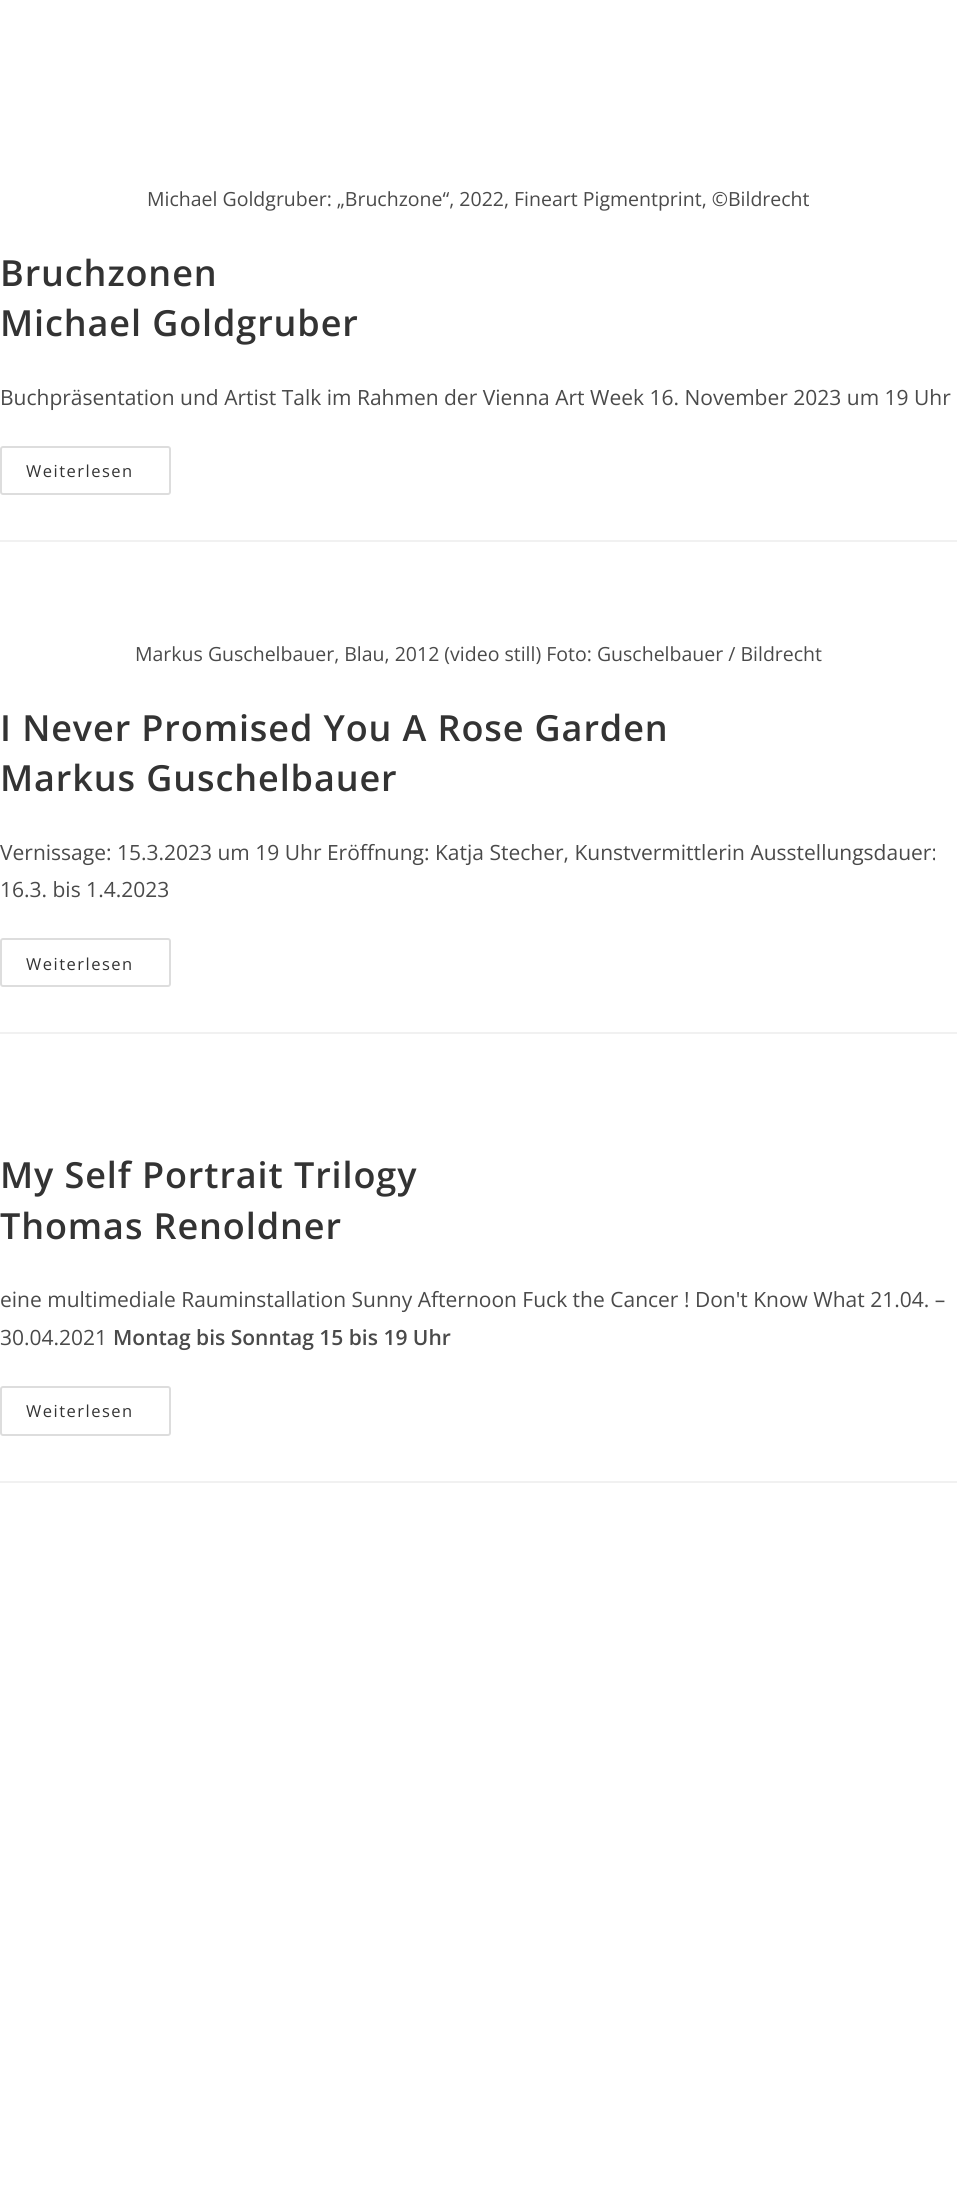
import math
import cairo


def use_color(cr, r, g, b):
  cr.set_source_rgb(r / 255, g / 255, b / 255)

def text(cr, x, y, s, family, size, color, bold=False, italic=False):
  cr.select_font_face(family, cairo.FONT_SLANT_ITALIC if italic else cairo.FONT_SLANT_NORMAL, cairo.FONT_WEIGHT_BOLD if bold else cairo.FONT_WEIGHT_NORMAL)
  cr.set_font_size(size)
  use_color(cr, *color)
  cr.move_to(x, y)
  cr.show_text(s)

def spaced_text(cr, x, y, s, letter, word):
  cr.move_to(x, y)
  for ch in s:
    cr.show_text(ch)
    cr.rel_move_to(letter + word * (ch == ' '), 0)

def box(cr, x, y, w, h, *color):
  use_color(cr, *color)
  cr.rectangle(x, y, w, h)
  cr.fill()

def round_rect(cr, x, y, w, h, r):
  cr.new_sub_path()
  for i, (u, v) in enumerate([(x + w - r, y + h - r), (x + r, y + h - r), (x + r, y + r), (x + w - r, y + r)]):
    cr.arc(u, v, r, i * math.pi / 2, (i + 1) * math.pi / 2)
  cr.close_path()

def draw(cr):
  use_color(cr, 255, 255, 255)
  cr.paint()
  box(cr, 0, 540, 957, 2, 241, 241, 241)
  round_rect(cr, 1, 447, 169, 47, 2)
  use_color(cr, 221, 221, 221)
  cr.stroke()
  box(cr, 0, 1032, 957, 2, 241, 241, 241)
  round_rect(cr, 1, 939, 169, 47, 2)
  use_color(cr, 221, 221, 221)
  cr.stroke()
  box(cr, 0, 1481, 957, 2, 241, 241, 241)
  round_rect(cr, 1, 1387, 169, 48, 2)
  use_color(cr, 221, 221, 221)
  cr.stroke()
  text(cr, 147, 206, "Michael Goldgruber: „Bruchzone“, 2022, Fineart Pigmentprint, ©Bildrecht", "Open Sans", 19.5, (74, 74, 74))
  cr.select_font_face("Open Sans SemiBold")
  cr.set_font_size(36)
  use_color(cr, 51, 51, 51)
  spaced_text(cr, 0, 286, "Bruchzonen", 0.9, 0)
  spaced_text(cr, 0, 336, "Michael Goldgruber", 0.9, 0)
  text(cr, 0, 405, "Buchpräsentation und Artist Talk im Rahmen der Vienna Art Week 16. November 2023 um 19 Uhr", "Open Sans", 21, (74, 74, 74))
  cr.set_font_size(16.5)
  use_color(cr, 51, 51, 51)
  spaced_text(cr, 26, 477, "Weiterlesen", 1.5, 0)
  text(cr, 135, 661, "Markus Guschelbauer, Blau, 2012 (video still) Foto: Guschelbauer / Bildrecht", "Open Sans", 19.5, (74, 74, 74))
  cr.select_font_face("Open Sans SemiBold")
  cr.set_font_size(36)
  use_color(cr, 51, 51, 51)
  spaced_text(cr, 0, 741, "I Never Promised You A Rose Garden", 0.9, 0)
  spaced_text(cr, 0, 791, "Markus Guschelbauer", 0.9, 0)
  text(cr, 0, 860, "Vernissage: 15.3.2023 um 19 Uhr Eröffnung: Katja Stecher, Kunstvermittlerin Ausstellungsdauer:", "Open Sans", 21, (74, 74, 74))
  text(cr, 0, 897, "16.3. bis 1.4.2023", "Open Sans", 21, (74, 74, 74))
  cr.set_font_size(16.5)
  use_color(cr, 51, 51, 51)
  spaced_text(cr, 26, 970, "Weiterlesen", 1.5, 0)
  cr.select_font_face("Open Sans SemiBold")
  cr.set_font_size(36)
  spaced_text(cr, 0, 1188, "My Self Portrait Trilogy", 0.9, 0)
  spaced_text(cr, 0, 1239, "Thomas Renoldner", 0.9, 0)
  text(cr, 0, 1307, "eine multimediale Rauminstallation Sunny Afternoon Fuck the Cancer ! Don't Know What 21.04. –", "Open Sans", 21, (74, 74, 74))
  text(cr, 0, 1345, "30.04.2021", "Open Sans", 21, (74, 74, 74))
  text(cr, 113, 1345, "Montag bis Sonntag 15 bis 19 Uhr", "Open Sans SemiBold", 21, (74, 74, 74))
  cr.select_font_face("Open Sans")
  cr.set_font_size(16.5)
  use_color(cr, 51, 51, 51)
  spaced_text(cr, 26, 1417, "Weiterlesen", 1.5, 0)


surface = cairo.ImageSurface(cairo.FORMAT_RGB24, 957, 2185)
cr = cairo.Context(surface)
options = cairo.FontOptions()
options.set_hint_metrics(cairo.HINT_METRICS_OFF)
options.set_hint_style(cairo.HINT_STYLE_NONE)
cr.set_font_options(options)
cr.set_miter_limit(4)
draw(cr)
surface.write_to_png("out.png")
